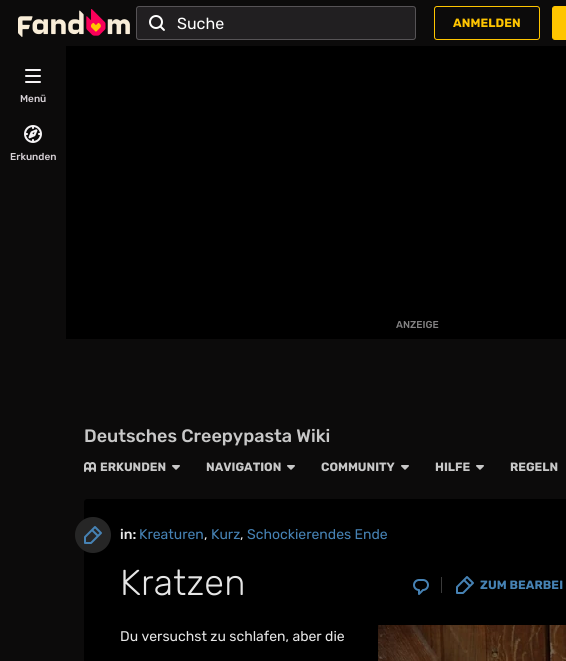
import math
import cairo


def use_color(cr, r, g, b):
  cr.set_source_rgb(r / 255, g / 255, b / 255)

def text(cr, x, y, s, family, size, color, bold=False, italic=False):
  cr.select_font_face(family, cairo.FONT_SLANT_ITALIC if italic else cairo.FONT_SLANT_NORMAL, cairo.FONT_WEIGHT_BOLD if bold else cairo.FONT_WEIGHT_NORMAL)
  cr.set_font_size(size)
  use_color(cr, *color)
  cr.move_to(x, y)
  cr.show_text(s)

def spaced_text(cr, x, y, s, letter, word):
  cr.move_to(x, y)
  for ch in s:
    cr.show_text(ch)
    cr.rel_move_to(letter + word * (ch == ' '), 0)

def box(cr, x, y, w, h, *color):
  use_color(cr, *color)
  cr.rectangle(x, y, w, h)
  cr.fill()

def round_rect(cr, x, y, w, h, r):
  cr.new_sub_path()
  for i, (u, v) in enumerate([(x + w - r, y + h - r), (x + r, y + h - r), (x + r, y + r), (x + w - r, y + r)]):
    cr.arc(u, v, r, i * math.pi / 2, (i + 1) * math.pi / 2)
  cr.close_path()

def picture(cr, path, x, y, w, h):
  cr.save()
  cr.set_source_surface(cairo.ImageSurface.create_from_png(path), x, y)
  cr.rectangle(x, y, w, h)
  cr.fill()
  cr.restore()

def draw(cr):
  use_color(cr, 12, 11, 11)
  cr.paint()
  picture(cr, "img_01.png", 18, 9, 112, 28)
  use_color(cr, 33, 31, 33)
  round_rect(cr, 136, 6, 280, 34, 3)
  cr.fill()
  round_rect(cr, 136.5, 6.5, 279, 33, 2.5)
  cr.set_source_rgba(0.961, 0.953, 0.961, 0.25)
  cr.set_line_width(1)
  cr.stroke()
  picture(cr, "img_02.png", 149, 15, 16, 16)
  round_rect(cr, 434.5, 6.5, 105, 33, 2.5)
  use_color(cr, 255, 197, 0)
  cr.stroke()
  round_rect(cr, 552.5, 6.5, 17, 33, 2.5)
  cr.fill_preserve()
  cr.stroke()
  picture(cr, "img_03.png", 25, 69, 16, 14)
  picture(cr, "img_04.png", 24, 125, 18, 18)
  box(cr, 66, 46, 500, 293, 0, 0, 0)
  picture(cr, "img_05.png", 84, 462, 12, 10)
  picture(cr, "img_06.png", 172, 465, 8, 5)
  picture(cr, "img_06.png", 287, 465, 8, 5)
  picture(cr, "img_06.png", 401, 465, 8, 5)
  picture(cr, "img_06.png", 476, 465, 8, 5)
  cr.new_path()
  cr.move_to(87, 499)
  cr.line_to(566, 499)
  cr.curve_to(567.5, 499, 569, 500.5, 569, 502)
  cr.line_to(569, 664)
  cr.line_to(84, 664)
  cr.line_to(84, 502)
  cr.curve_to(84, 500.5, 85.5, 499, 87, 499)
  cr.close_path()
  cr.fill()
  use_color(cr, 38, 38, 38)
  cr.arc(93, 535, 18, 0, 2 * math.pi)
  cr.fill()
  picture(cr, "img_07.png", 84, 526, 18, 18)
  picture(cr, "img_08.png", 413, 579, 16, 16)
  box(cr, 441, 577, 1, 16, 58, 58, 58)
  picture(cr, "img_09.png", 456, 576, 18, 18)
  picture(cr, "img_10.png", 378, 625, 188, 36)
  text(cr, 177, 29, "Suche", "Rubik", 16, (255, 255, 255))
  cr.select_font_face("Rubik", cairo.FONT_SLANT_NORMAL, cairo.FONT_WEIGHT_BOLD)
  cr.set_font_size(12)
  use_color(cr, 255, 197, 0)
  spaced_text(cr, 453, 27, "ANMELDEN", 0.1, 0)
  text(cr, 20, 102, "Menü", "Rubik Medium", 10, (214, 208, 213))
  text(cr, 10, 160, "Erkunden", "Rubik Medium", 10, (214, 208, 213))
  text(cr, 396, 328, "ANZEIGE", "Rubik Medium", 10, (131, 130, 131))
  text(cr, 84, 442, "Deutsches Creepypasta Wiki", "Rubik Medium", 18, (200, 200, 200))
  text(cr, 100, 471, "ERKUNDEN", "Rubik", 12, (200, 200, 200), bold=True)
  text(cr, 206, 471, "NAVIGATION", "Rubik", 12, (200, 200, 200), bold=True)
  text(cr, 321, 471, "COMMUNITY", "Rubik", 12, (200, 200, 200), bold=True)
  text(cr, 435, 471, "HILFE", "Rubik", 12, (200, 200, 200), bold=True)
  text(cr, 510, 471, "REGELN", "Rubik", 12, (200, 200, 200), bold=True)
  text(cr, 120, 539, "in:", "Rubik Medium", 14, (230, 230, 230))
  text(cr, 139, 539, "Kreaturen", "Rubik", 14, (70, 130, 180))
  text(cr, 204, 539, ",", "Rubik", 14, (230, 230, 230))
  text(cr, 211, 539, "Kurz", "Rubik", 14, (70, 130, 180))
  text(cr, 240, 539, ",", "Rubik", 14, (230, 230, 230))
  text(cr, 247, 539, "Schockierendes Ende", "Rubik", 14, (70, 130, 180))
  cr.select_font_face("Rubik Light")
  cr.set_font_size(36)
  use_color(cr, 230, 230, 230)
  spaced_text(cr, 120, 595, "Kratzen", 0.25, 0)
  cr.select_font_face("Rubik", cairo.FONT_SLANT_NORMAL, cairo.FONT_WEIGHT_BOLD)
  cr.set_font_size(12)
  use_color(cr, 70, 130, 180)
  spaced_text(cr, 480, 589, "ZUM BEARBEI", 0.1, 0)
  text(cr, 120, 641, "Du versuchst zu schlafen, aber die", "Rubik", 14, (230, 230, 230))


surface = cairo.ImageSurface(cairo.FORMAT_RGB24, 566, 661)
cr = cairo.Context(surface)
options = cairo.FontOptions()
options.set_hint_metrics(cairo.HINT_METRICS_OFF)
options.set_hint_style(cairo.HINT_STYLE_NONE)
cr.set_font_options(options)
cr.set_miter_limit(4)
draw(cr)
surface.write_to_png("out.png")
